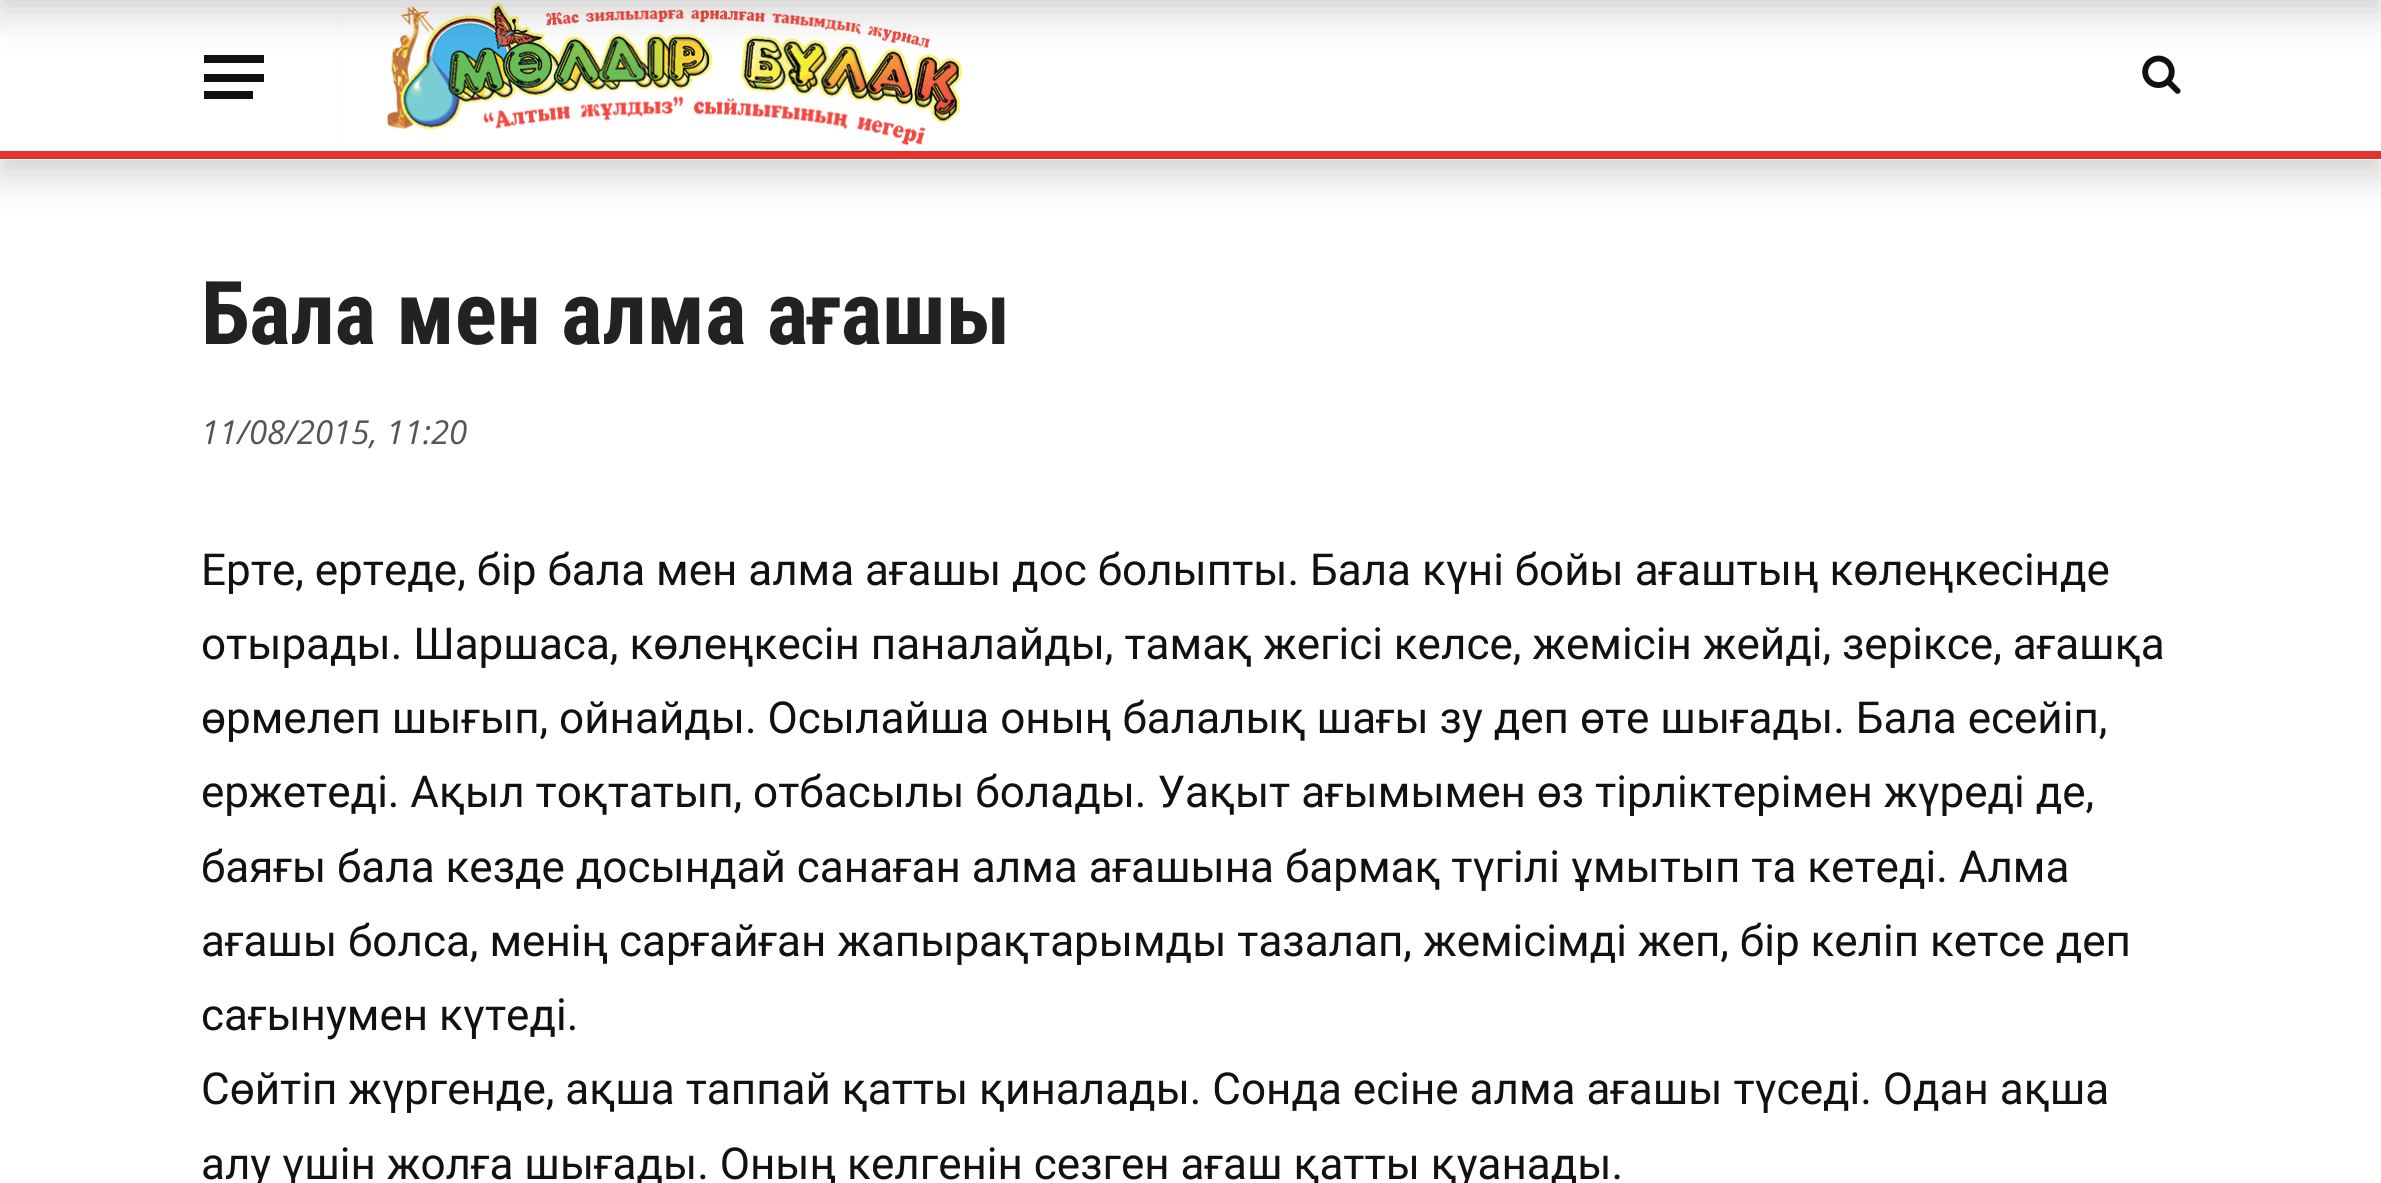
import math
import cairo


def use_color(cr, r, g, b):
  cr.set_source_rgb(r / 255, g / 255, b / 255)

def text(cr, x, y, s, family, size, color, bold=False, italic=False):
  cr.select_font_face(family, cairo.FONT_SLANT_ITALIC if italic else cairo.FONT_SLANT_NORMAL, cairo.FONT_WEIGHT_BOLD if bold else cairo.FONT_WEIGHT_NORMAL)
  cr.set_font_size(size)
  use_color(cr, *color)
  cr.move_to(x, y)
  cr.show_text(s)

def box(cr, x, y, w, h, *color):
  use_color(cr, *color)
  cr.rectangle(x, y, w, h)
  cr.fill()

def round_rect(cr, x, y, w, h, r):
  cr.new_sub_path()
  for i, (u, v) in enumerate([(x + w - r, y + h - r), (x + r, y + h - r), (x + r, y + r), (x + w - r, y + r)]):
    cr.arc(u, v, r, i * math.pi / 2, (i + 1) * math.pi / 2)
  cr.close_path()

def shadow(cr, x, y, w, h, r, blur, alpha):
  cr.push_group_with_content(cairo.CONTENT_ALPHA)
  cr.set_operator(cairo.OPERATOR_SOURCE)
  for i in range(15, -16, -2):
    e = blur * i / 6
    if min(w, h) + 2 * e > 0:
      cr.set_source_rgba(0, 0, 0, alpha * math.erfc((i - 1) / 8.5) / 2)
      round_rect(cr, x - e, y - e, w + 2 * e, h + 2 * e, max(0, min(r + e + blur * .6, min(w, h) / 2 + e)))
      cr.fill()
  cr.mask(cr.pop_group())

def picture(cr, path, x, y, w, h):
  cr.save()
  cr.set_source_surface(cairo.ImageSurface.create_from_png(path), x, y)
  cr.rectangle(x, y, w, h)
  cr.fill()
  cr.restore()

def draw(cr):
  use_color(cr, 255, 255, 255)
  cr.paint()
  use_color(cr, 0, 0, 0)
  shadow(cr, 0, 14, 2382, 159, 0, 20.5, 0.2)
  box(cr, 0, 0, 2381, 160, 255, 255, 255)
  box(cr, 0, 151, 2381, 8, 228, 52, 45)
  box(cr, 204, 55, 60, 8, 17, 17, 17)
  box(cr, 204, 74, 60, 8, 17, 17, 17)
  box(cr, 204, 91, 49, 8, 17, 17, 17)
  picture(cr, "img_01.png", 341, 0, 622, 151)
  picture(cr, "img_02.png", 2142, 55, 39, 39)
  use_color(cr, 0, 0, 0)
  shadow(cr, 0, -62, 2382, 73, 0, 20.5, 0.2)
  text(cr, 201, 344, "Бала мен алма ағашы", "Roboto Condensed", 88, (34, 34, 34), bold=True)
  text(cr, 201, 444, "11/08/2015, 11:20", "Open Sans", 33, (85, 85, 85), italic=True)
  text(cr, 201, 585, "Ерте, ертеде, бір бала мен алма ағашы дос болыпты. Бала күні бойы ағаштың көлеңкесінде", "Roboto", 44, (17, 17, 17))
  text(cr, 201, 659, "отырады. Шаршаса, көлеңкесін паналайды, тамақ жегісі келсе, жемісін жейді, зеріксе, ағашқа", "Roboto", 44, (17, 17, 17))
  text(cr, 201, 733, "өрмелеп шығып, ойнайды. Осылайша оның балалық шағы зу деп өте шығады. Бала есейіп,", "Roboto", 44, (17, 17, 17))
  text(cr, 201, 807, "ержетеді. Ақыл тоқтатып, отбасылы болады. Уақыт ағымымен өз тірліктерімен жүреді де,", "Roboto", 44, (17, 17, 17))
  text(cr, 201, 882, "баяғы бала кезде досындай санаған алма ағашына бармақ түгілі ұмытып та кетеді. Алма", "Roboto", 44, (17, 17, 17))
  text(cr, 201, 956, "ағашы болса, менің сарғайған жапырақтарымды тазалап, жемісімді жеп, бір келіп кетсе деп", "Roboto", 44, (17, 17, 17))
  text(cr, 201, 1030, "сағынумен күтеді.", "Roboto", 44, (17, 17, 17))
  text(cr, 201, 1104, "Сөйтіп жүргенде, ақша таппай қатты қиналады. Сонда есіне алма ағашы түседі. Одан ақша", "Roboto", 44, (17, 17, 17))
  text(cr, 201, 1179, "алу үшін жолға шығады. Оның келгенін сезген ағаш қатты қуанады.", "Roboto", 44, (17, 17, 17))


surface = cairo.ImageSurface(cairo.FORMAT_RGB24, 2381, 1183)
cr = cairo.Context(surface)
options = cairo.FontOptions()
options.set_hint_metrics(cairo.HINT_METRICS_OFF)
options.set_hint_style(cairo.HINT_STYLE_NONE)
cr.set_font_options(options)
cr.set_miter_limit(4)
draw(cr)
surface.write_to_png("out.png")
